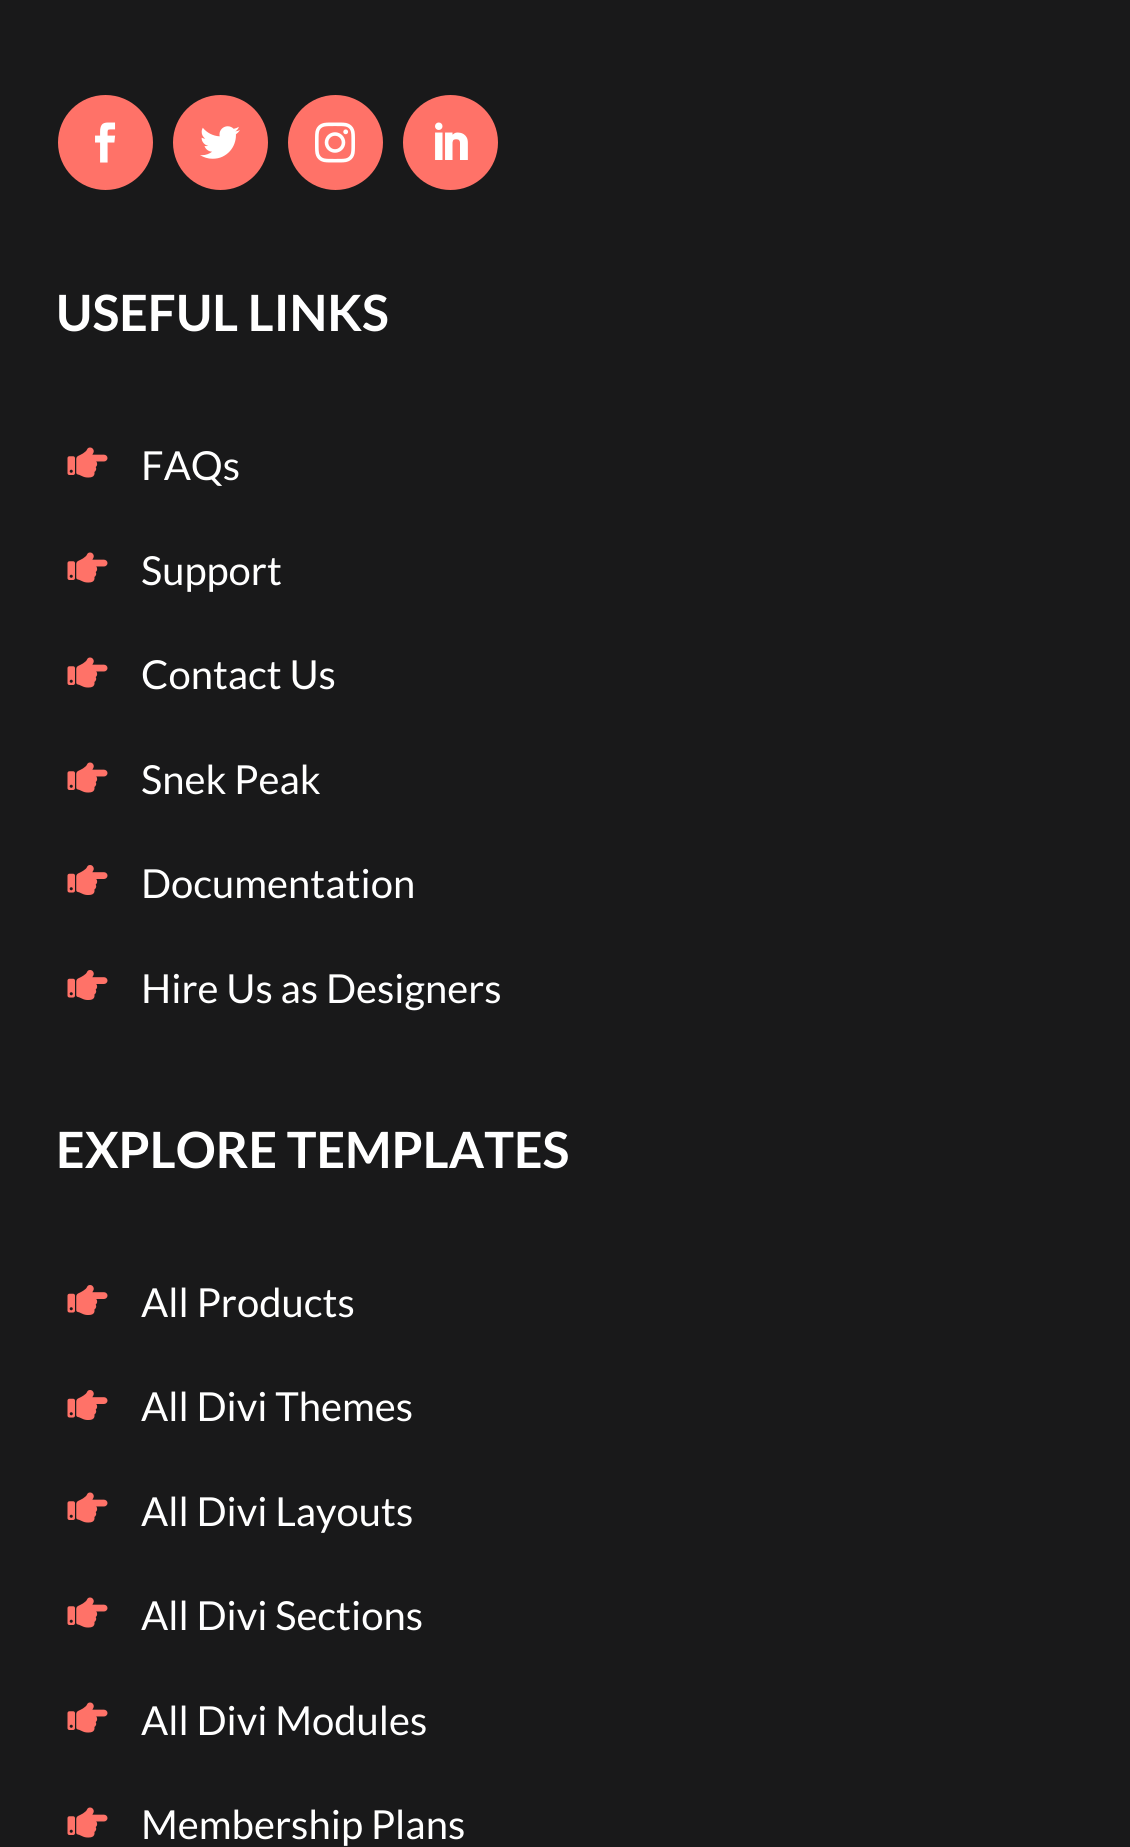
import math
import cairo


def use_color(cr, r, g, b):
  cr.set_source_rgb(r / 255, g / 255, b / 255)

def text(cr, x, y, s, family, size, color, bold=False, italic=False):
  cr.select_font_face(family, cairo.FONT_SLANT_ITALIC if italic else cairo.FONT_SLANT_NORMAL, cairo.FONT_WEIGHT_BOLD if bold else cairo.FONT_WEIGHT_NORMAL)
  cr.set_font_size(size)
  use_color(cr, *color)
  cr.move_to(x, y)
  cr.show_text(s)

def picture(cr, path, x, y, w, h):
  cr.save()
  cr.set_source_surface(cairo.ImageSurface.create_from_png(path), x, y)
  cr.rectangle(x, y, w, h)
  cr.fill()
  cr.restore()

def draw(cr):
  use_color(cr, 25, 25, 26)
  cr.paint()
  use_color(cr, 255, 114, 104)
  cr.arc(105.5, 142.5, 47.5, 0, 2 * math.pi)
  cr.fill()
  picture(cr, "img_01.png", 95, 122, 21, 41)
  cr.arc(220.5, 142.5, 47.5, 0, 2 * math.pi)
  cr.fill()
  picture(cr, "img_02.png", 200, 126, 40, 33)
  cr.arc(335.5, 142.5, 47.5, 0, 2 * math.pi)
  cr.fill()
  picture(cr, "img_03.png", 315, 122, 40, 41)
  cr.arc(450.5, 142.5, 47.5, 0, 2 * math.pi)
  cr.fill()
  picture(cr, "img_04.png", 435, 122, 33, 38)
  picture(cr, "img_05.png", 67, 447, 41, 31)
  picture(cr, "img_05.png", 67, 552, 41, 31)
  picture(cr, "img_05.png", 67, 657, 41, 31)
  picture(cr, "img_05.png", 67, 762, 41, 31)
  picture(cr, "img_06.png", 67, 865, 41, 30)
  picture(cr, "img_06.png", 67, 970, 41, 30)
  picture(cr, "img_06.png", 67, 1285, 41, 30)
  picture(cr, "img_06.png", 67, 1390, 41, 30)
  picture(cr, "img_05.png", 67, 1492, 41, 31)
  picture(cr, "img_05.png", 67, 1597, 41, 31)
  picture(cr, "img_05.png", 67, 1702, 41, 31)
  picture(cr, "img_05.png", 67, 1807, 41, 31)
  text(cr, 56, 331, "USEFUL LINKS", "Lato", 50, (255, 255, 255), bold=True)
  text(cr, 141, 480, "FAQs", "Lato", 40, (255, 255, 255))
  text(cr, 141, 585, "Support", "Lato", 40, (255, 255, 255))
  text(cr, 141, 689, "Contact Us", "Lato", 40, (255, 255, 255))
  text(cr, 141, 794, "Snek Peak", "Lato", 40, (255, 255, 255))
  text(cr, 141, 898, "Documentation", "Lato", 40, (255, 255, 255))
  text(cr, 141, 1003, "Hire Us as Designers", "Lato", 40, (255, 255, 255))
  text(cr, 56, 1168, "EXPLORE TEMPLATES", "Lato", 50, (255, 255, 255), bold=True)
  text(cr, 141, 1317, "All Products", "Lato", 40, (255, 255, 255))
  text(cr, 141, 1421, "All Divi Themes", "Lato", 40, (255, 255, 255))
  text(cr, 141, 1526, "All Divi Layouts", "Lato", 40, (255, 255, 255))
  text(cr, 141, 1630, "All Divi Sections", "Lato", 40, (255, 255, 255))
  text(cr, 141, 1735, "All Divi Modules", "Lato", 40, (255, 255, 255))
  text(cr, 141, 1839, "Membership Plans", "Lato", 40, (255, 255, 255))


surface = cairo.ImageSurface(cairo.FORMAT_RGB24, 1130, 1847)
cr = cairo.Context(surface)
options = cairo.FontOptions()
options.set_hint_metrics(cairo.HINT_METRICS_OFF)
options.set_hint_style(cairo.HINT_STYLE_NONE)
cr.set_font_options(options)
cr.set_miter_limit(4)
draw(cr)
surface.write_to_png("out.png")
